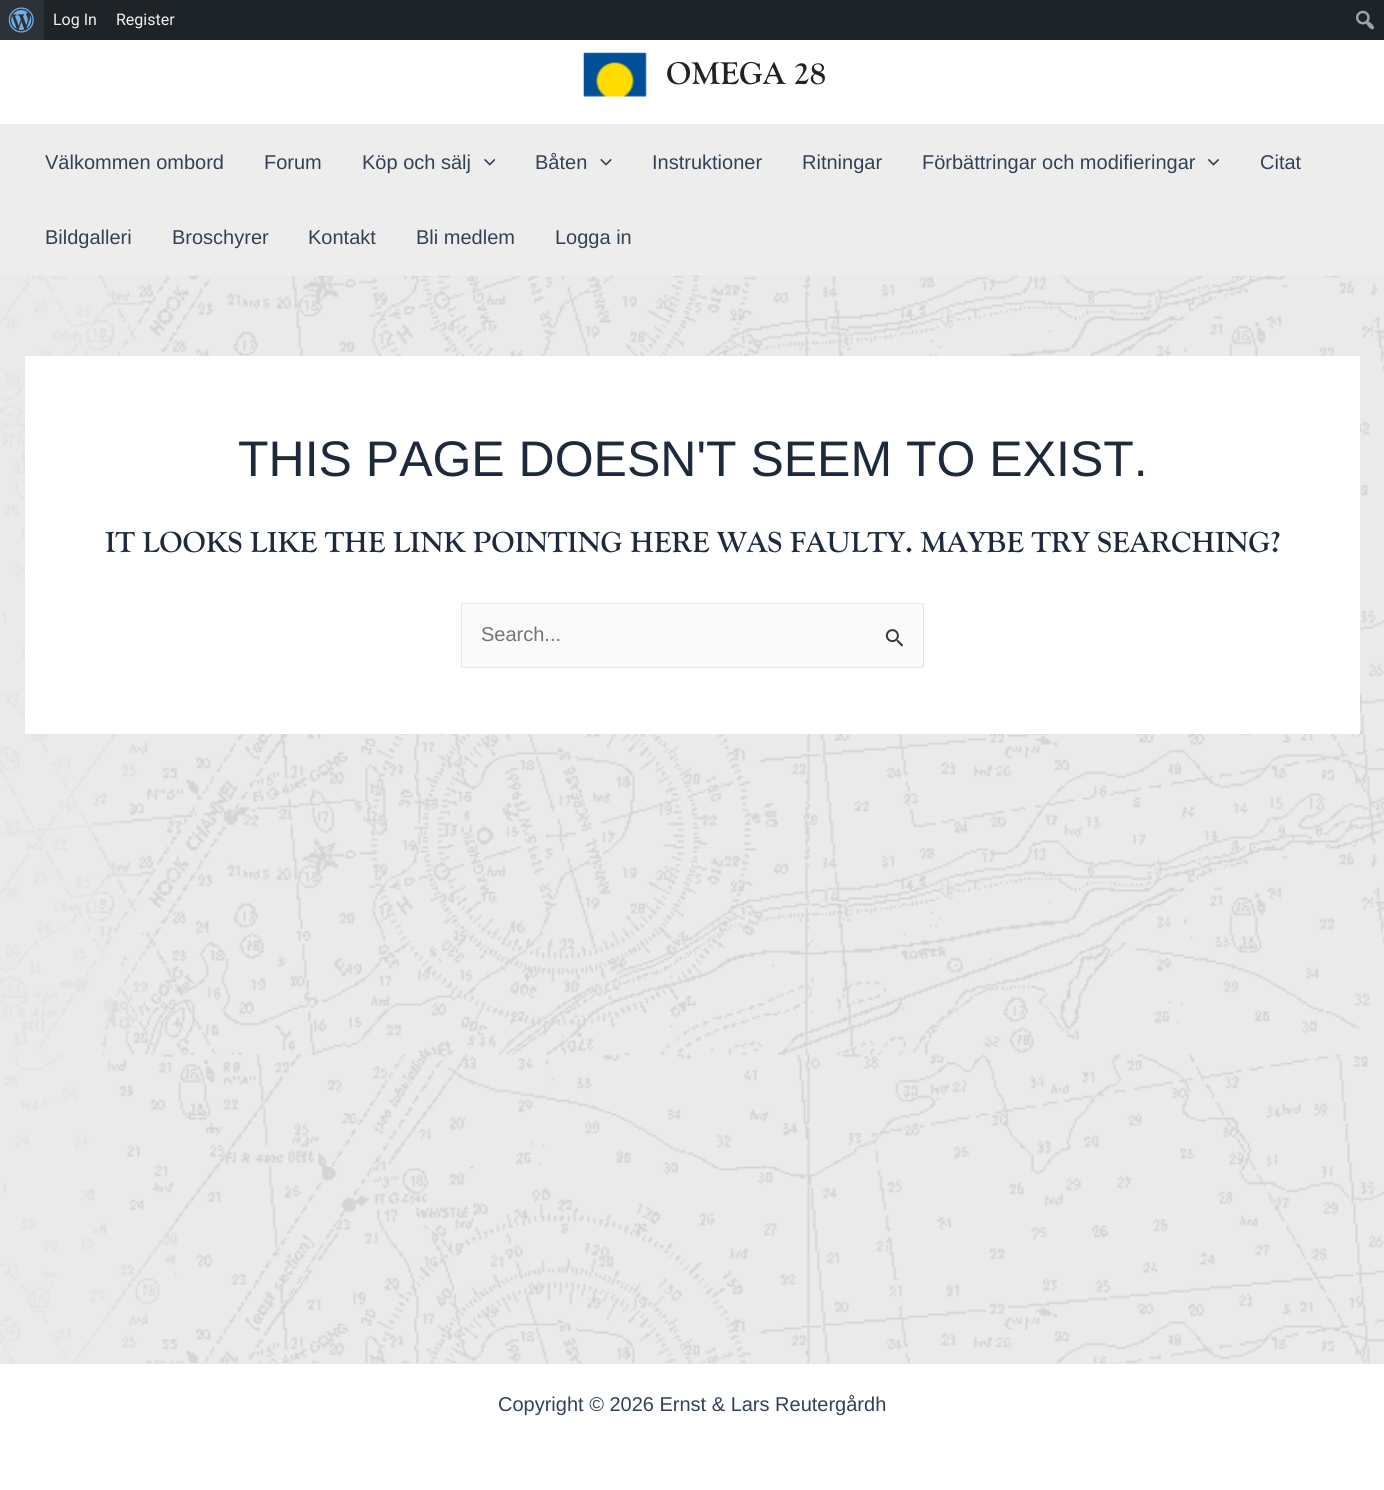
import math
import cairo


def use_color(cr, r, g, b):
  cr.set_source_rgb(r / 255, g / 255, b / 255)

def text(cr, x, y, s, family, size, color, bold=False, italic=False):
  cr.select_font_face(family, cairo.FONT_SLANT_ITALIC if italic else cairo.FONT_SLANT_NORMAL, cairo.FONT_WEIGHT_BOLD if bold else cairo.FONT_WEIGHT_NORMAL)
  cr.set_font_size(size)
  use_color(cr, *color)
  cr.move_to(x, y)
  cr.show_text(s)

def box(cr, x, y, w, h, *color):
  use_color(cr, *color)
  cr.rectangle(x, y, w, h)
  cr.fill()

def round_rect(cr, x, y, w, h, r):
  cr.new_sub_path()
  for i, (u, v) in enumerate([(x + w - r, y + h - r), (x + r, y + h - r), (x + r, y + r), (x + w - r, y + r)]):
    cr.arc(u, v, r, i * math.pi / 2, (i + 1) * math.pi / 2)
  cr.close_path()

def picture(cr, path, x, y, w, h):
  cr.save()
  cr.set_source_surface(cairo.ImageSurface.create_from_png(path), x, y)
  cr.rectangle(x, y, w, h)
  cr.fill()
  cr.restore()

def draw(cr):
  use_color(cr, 245, 245, 245)
  cr.paint()
  picture(cr, "img_01.png", 0, 276, 1384, 1087)
  box(cr, 44, 0, 1340, 40, 29, 35, 39)
  box(cr, 0, 0, 44, 40, 44, 51, 56)
  picture(cr, "img_02.png", 8, 7, 26, 26)
  picture(cr, "img_03.png", 1356, 10, 18, 20)
  box(cr, 0, 40, 1384, 84, 255, 255, 255)
  box(cr, 0, 124, 1384, 1, 234, 234, 234)
  picture(cr, "img_04.png", 583, 52, 64, 45)
  box(cr, 0, 125, 1384, 150, 237, 237, 237)
  box(cr, 0, 275, 1384, 1, 234, 234, 234)
  picture(cr, "img_05.png", 484, 158, 11, 8)
  picture(cr, "img_06.png", 600, 158, 12, 8)
  picture(cr, "img_07.png", 1208, 158, 12, 8)
  box(cr, 25, 356, 1335, 378, 255, 255, 255)
  use_color(cr, 250, 250, 250)
  round_rect(cr, 461.5, 603.5, 462, 64, 2)
  cr.fill_preserve()
  use_color(cr, 226, 232, 240)
  cr.set_line_width(1)
  cr.stroke()
  picture(cr, "img_08.png", 885, 629, 18, 18)
  box(cr, 0, 1364, 1384, 126, 255, 255, 255)
  box(cr, 0, 1363, 1384, 1, 226, 232, 240)
  text(cr, 53, 25, "Log In", "Roboto", 16, (240, 240, 241))
  text(cr, 116, 25, "Register", "Roboto", 16, (240, 240, 241))
  text(cr, 666, 84, "OMEGA 28", "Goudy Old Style", 32.5, (34, 34, 34), bold=True)
  text(cr, 45, 169, "Välkommen ombord", "Liberation Sans", 20, (51, 65, 85))
  text(cr, 264, 169, "Forum", "Liberation Sans", 20, (51, 65, 85))
  text(cr, 362, 169, "Köp och sälj", "Liberation Sans", 20, (51, 65, 85))
  text(cr, 535, 169, "Båten", "Liberation Sans", 20, (51, 65, 85))
  text(cr, 652, 169, "Instruktioner", "Liberation Sans", 20, (51, 65, 85))
  text(cr, 802, 169, "Ritningar", "Liberation Sans", 20, (51, 65, 85))
  text(cr, 922, 169, "Förbättringar och modifieringar", "Liberation Sans", 20, (51, 65, 85))
  text(cr, 1260, 169, "Citat", "Liberation Sans", 20, (51, 65, 85))
  text(cr, 45, 244, "Bildgalleri", "Liberation Sans", 20, (51, 65, 85))
  text(cr, 172, 244, "Broschyrer", "Liberation Sans", 20, (51, 65, 85))
  text(cr, 308, 244, "Kontakt", "Liberation Sans", 20, (51, 65, 85))
  text(cr, 416, 244, "Bli medlem", "Liberation Sans", 20, (51, 65, 85))
  text(cr, 555, 244, "Logga in", "Liberation Sans", 20, (51, 65, 85))
  text(cr, 238, 476, "THIS PAGE DOESN'T SEEM TO EXIST.", "Liberation Sans", 50, (30, 41, 59))
  text(cr, 105, 552, "IT LOOKS LIKE THE LINK POINTING HERE WAS FAULTY. MAYBE TRY SEARCHING?", "Goudy Old Style", 30, (30, 41, 59), bold=True)
  text(cr, 481, 641, "Search...", "Liberation Sans", 20, (117, 117, 117))
  text(cr, 498, 1411, "Copyright © 2026 Ernst & Lars Reutergårdh", "Liberation Sans", 20, (51, 65, 85))


surface = cairo.ImageSurface(cairo.FORMAT_RGB24, 1384, 1490)
cr = cairo.Context(surface)
options = cairo.FontOptions()
options.set_hint_metrics(cairo.HINT_METRICS_OFF)
options.set_hint_style(cairo.HINT_STYLE_NONE)
cr.set_font_options(options)
cr.set_miter_limit(4)
draw(cr)
surface.write_to_png("out.png")
